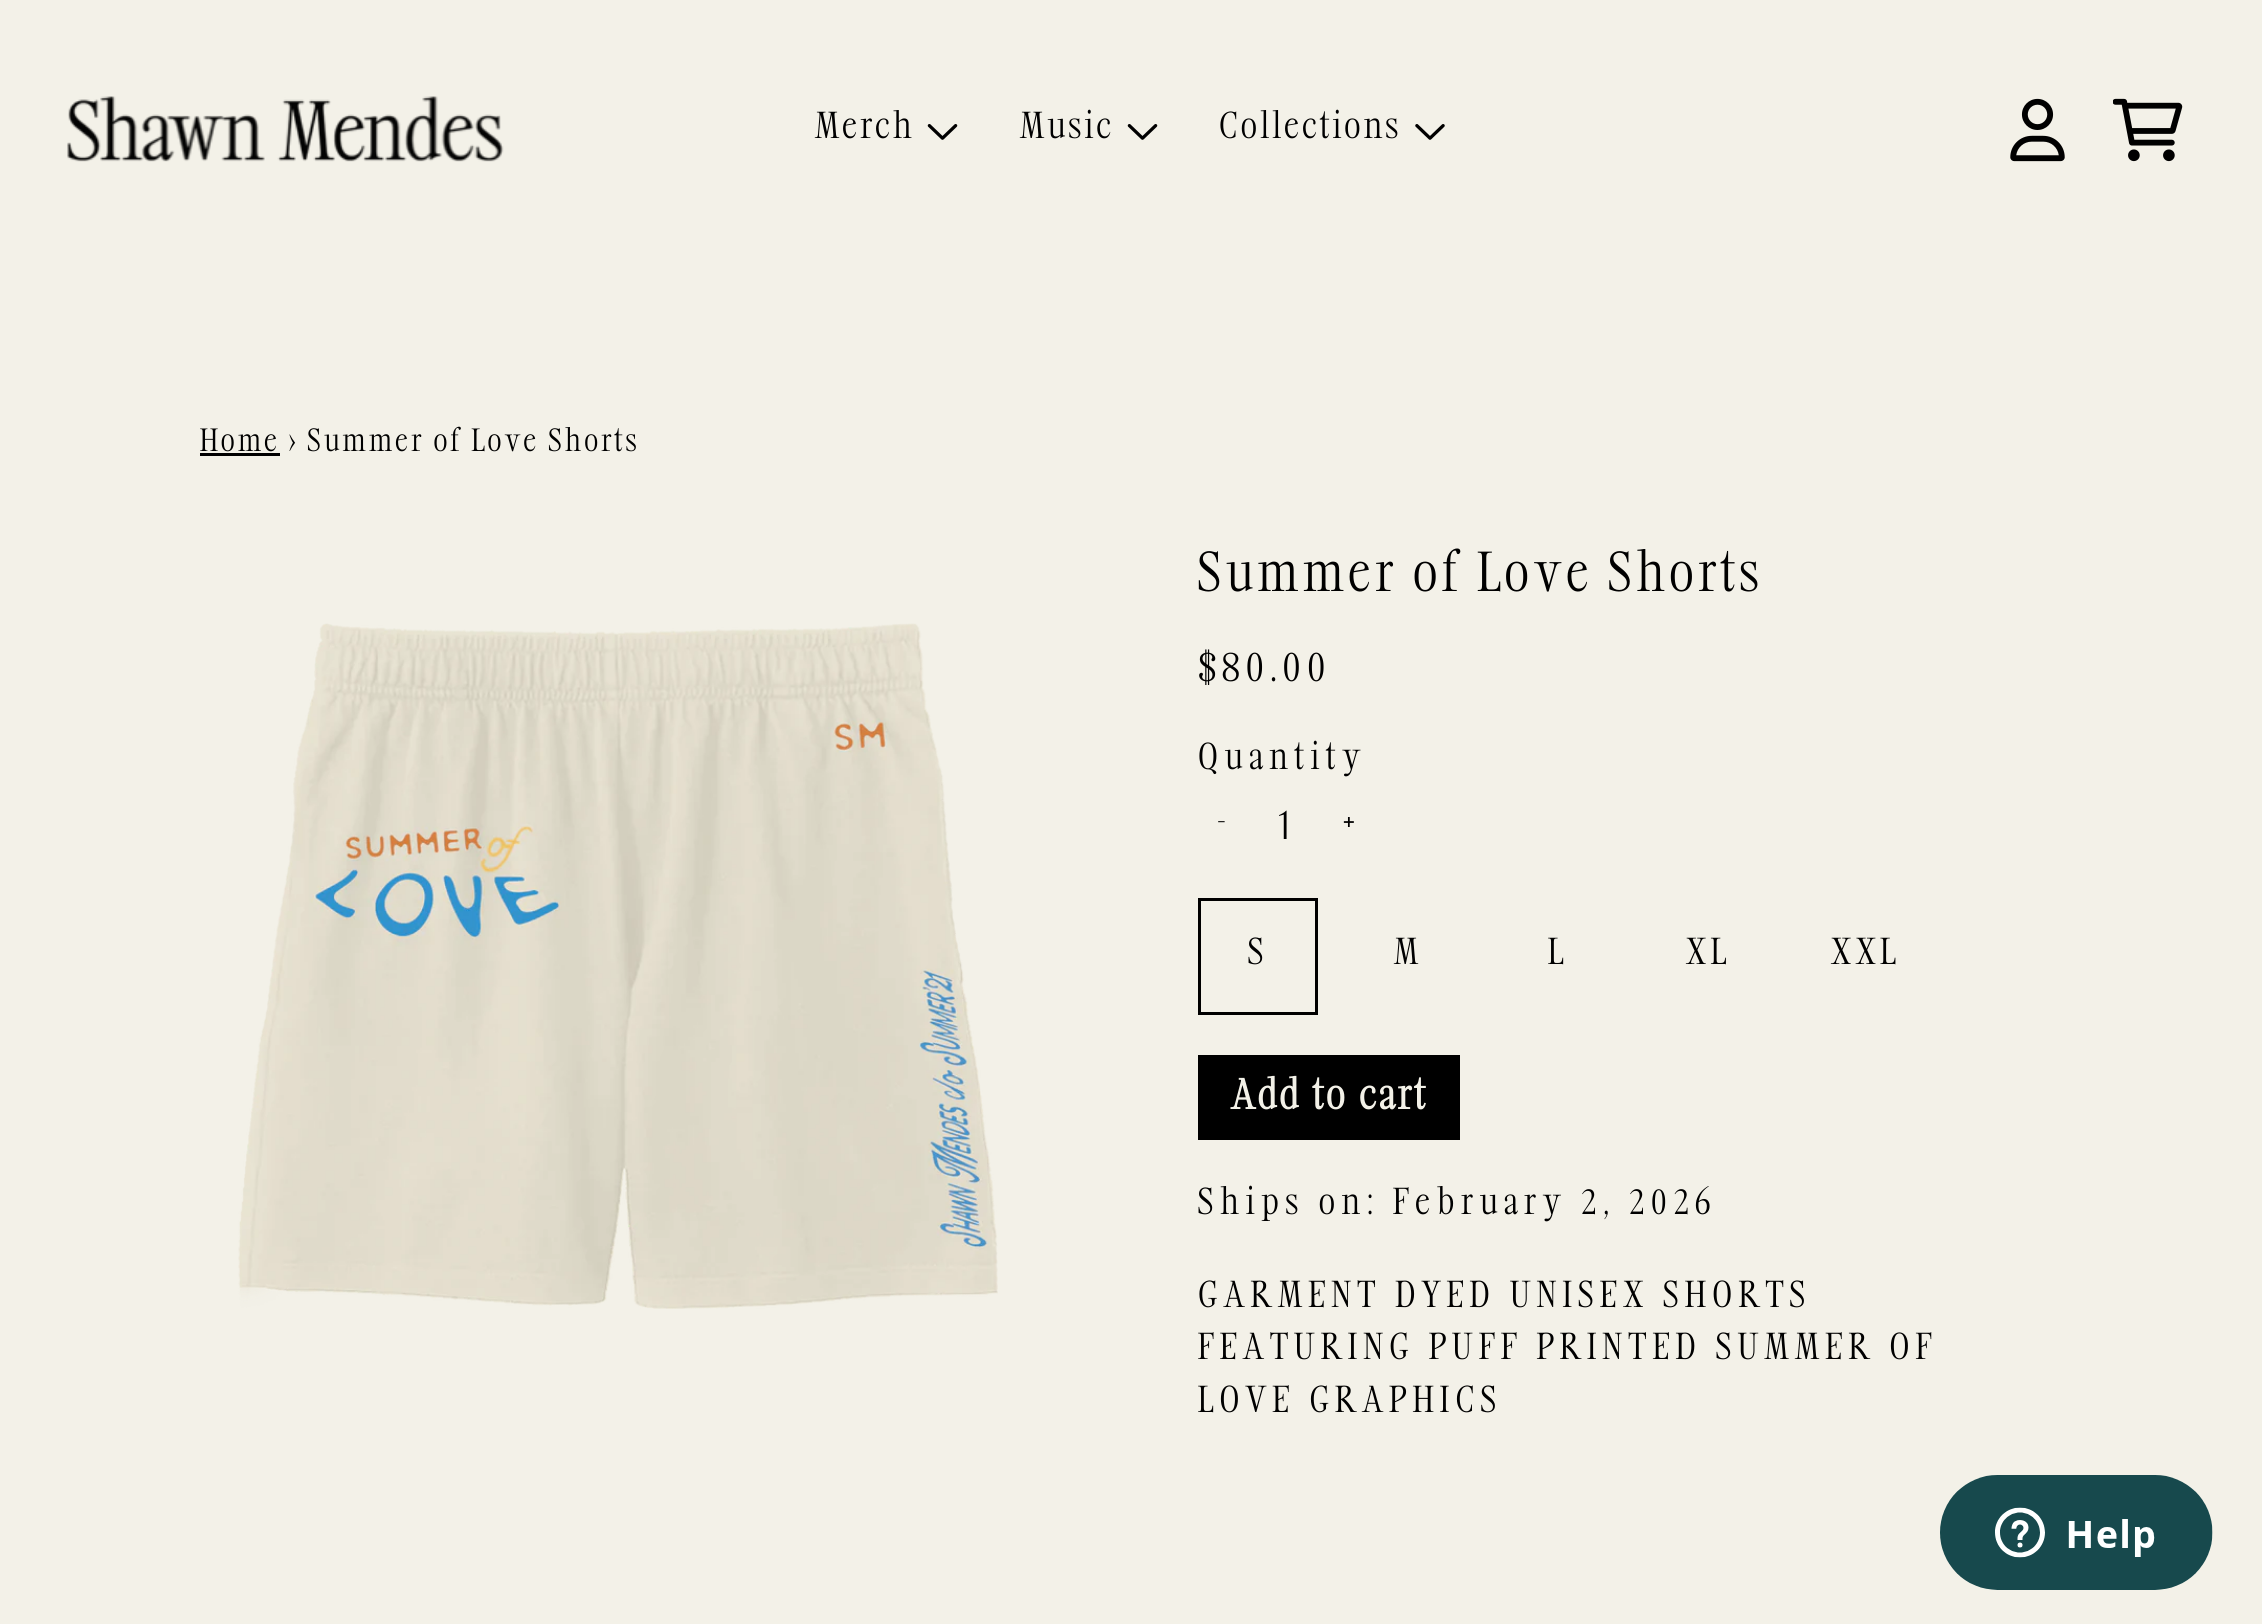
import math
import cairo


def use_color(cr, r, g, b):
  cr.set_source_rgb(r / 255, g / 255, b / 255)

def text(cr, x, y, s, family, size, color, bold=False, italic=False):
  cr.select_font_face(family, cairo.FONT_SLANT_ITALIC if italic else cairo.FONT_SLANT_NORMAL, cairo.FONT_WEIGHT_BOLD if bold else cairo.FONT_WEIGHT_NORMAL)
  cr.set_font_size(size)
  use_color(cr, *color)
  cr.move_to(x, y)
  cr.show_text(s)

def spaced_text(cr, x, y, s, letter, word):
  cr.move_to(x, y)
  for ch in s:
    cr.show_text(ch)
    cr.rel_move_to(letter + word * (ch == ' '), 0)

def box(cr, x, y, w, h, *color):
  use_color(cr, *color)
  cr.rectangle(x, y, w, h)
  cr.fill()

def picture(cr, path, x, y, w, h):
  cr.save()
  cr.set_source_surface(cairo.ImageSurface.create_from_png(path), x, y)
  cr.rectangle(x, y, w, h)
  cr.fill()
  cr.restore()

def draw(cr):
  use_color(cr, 243, 241, 232)
  cr.paint()
  picture(cr, "img_01.png", 67, 96, 437, 66)
  picture(cr, "img_02.png", 927, 124, 31, 16)
  picture(cr, "img_02.png", 1127, 124, 31, 16)
  picture(cr, "img_03.png", 1415, 124, 30, 16)
  picture(cr, "img_04.png", 2010, 98, 55, 64)
  picture(cr, "img_05.png", 2113, 98, 70, 64)
  box(cr, 200, 453, 80, 3, 0, 0, 0)
  picture(cr, "img_06.png", 238, 623, 760, 686)
  cr.rectangle(1199.5, 899.5, 117, 114)
  cr.set_line_width(3)
  cr.stroke()
  cr.rectangle(1199.5, 1056.5, 259, 82)
  cr.fill_preserve()
  cr.stroke()
  picture(cr, "img_07.png", 1940, 1475, 273, 115)
  cr.select_font_face("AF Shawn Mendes")
  cr.set_font_size(35)
  spaced_text(cr, 815, 138, "Merch", 3, 0)
  spaced_text(cr, 1020, 138, "Music", 3, 0)
  spaced_text(cr, 1219, 138, "Collections", 3, 0)
  cr.set_font_size(30)
  spaced_text(cr, 200, 451, "Home › Summer of Love Shorts", 3, 0)
  cr.set_font_size(52.5)
  spaced_text(cr, 1198, 591, "Summer of Love Shorts", 4.5, 0)
  cr.set_font_size(40)
  spaced_text(cr, 1198, 681, "$80.00", 5.25, 0)
  cr.set_font_size(35)
  spaced_text(cr, 1198, 769, "Quantity", 6.5, 0)
  text(cr, 1218, 832, "-", "AF Shawn Mendes", 35, (0, 0, 0))
  text(cr, 1278, 839, "1", "AF Shawn Mendes", 40, (0, 0, 0))
  text(cr, 1343, 832, "+", "AF Shawn Mendes", 35, (0, 0, 0))
  spaced_text(cr, 1248, 964, "S", 5, 0)
  spaced_text(cr, 1394, 964, "M", 5, 0)
  spaced_text(cr, 1548, 964, "L", 5, 0)
  spaced_text(cr, 1686, 964, "XL", 5, 0)
  spaced_text(cr, 1831, 964, "XXL", 5, 0)
  cr.select_font_face("AF Shawn Mendes", cairo.FONT_SLANT_NORMAL, cairo.FONT_WEIGHT_BOLD)
  cr.set_font_size(40)
  use_color(cr, 243, 241, 232)
  spaced_text(cr, 1231, 1109, "Add to cart", 3, 0)
  cr.select_font_face("AF Shawn Mendes")
  cr.set_font_size(35)
  use_color(cr, 0, 0, 0)
  spaced_text(cr, 1198, 1214, "Ships on: February 2, 2026", 6.5, 0)
  spaced_text(cr, 1198, 1307, "GARMENT DYED UNISEX SHORTS", 6.5, 0)
  spaced_text(cr, 1198, 1359, "FEATURING PUFF PRINTED SUMMER OF", 6.5, 0)
  spaced_text(cr, 1198, 1412, "LOVE GRAPHICS", 6.5, 0)


surface = cairo.ImageSurface(cairo.FORMAT_RGB24, 2262, 1624)
cr = cairo.Context(surface)
options = cairo.FontOptions()
options.set_hint_metrics(cairo.HINT_METRICS_OFF)
options.set_hint_style(cairo.HINT_STYLE_NONE)
cr.set_font_options(options)
cr.set_miter_limit(4)
draw(cr)
surface.write_to_png("out.png")
